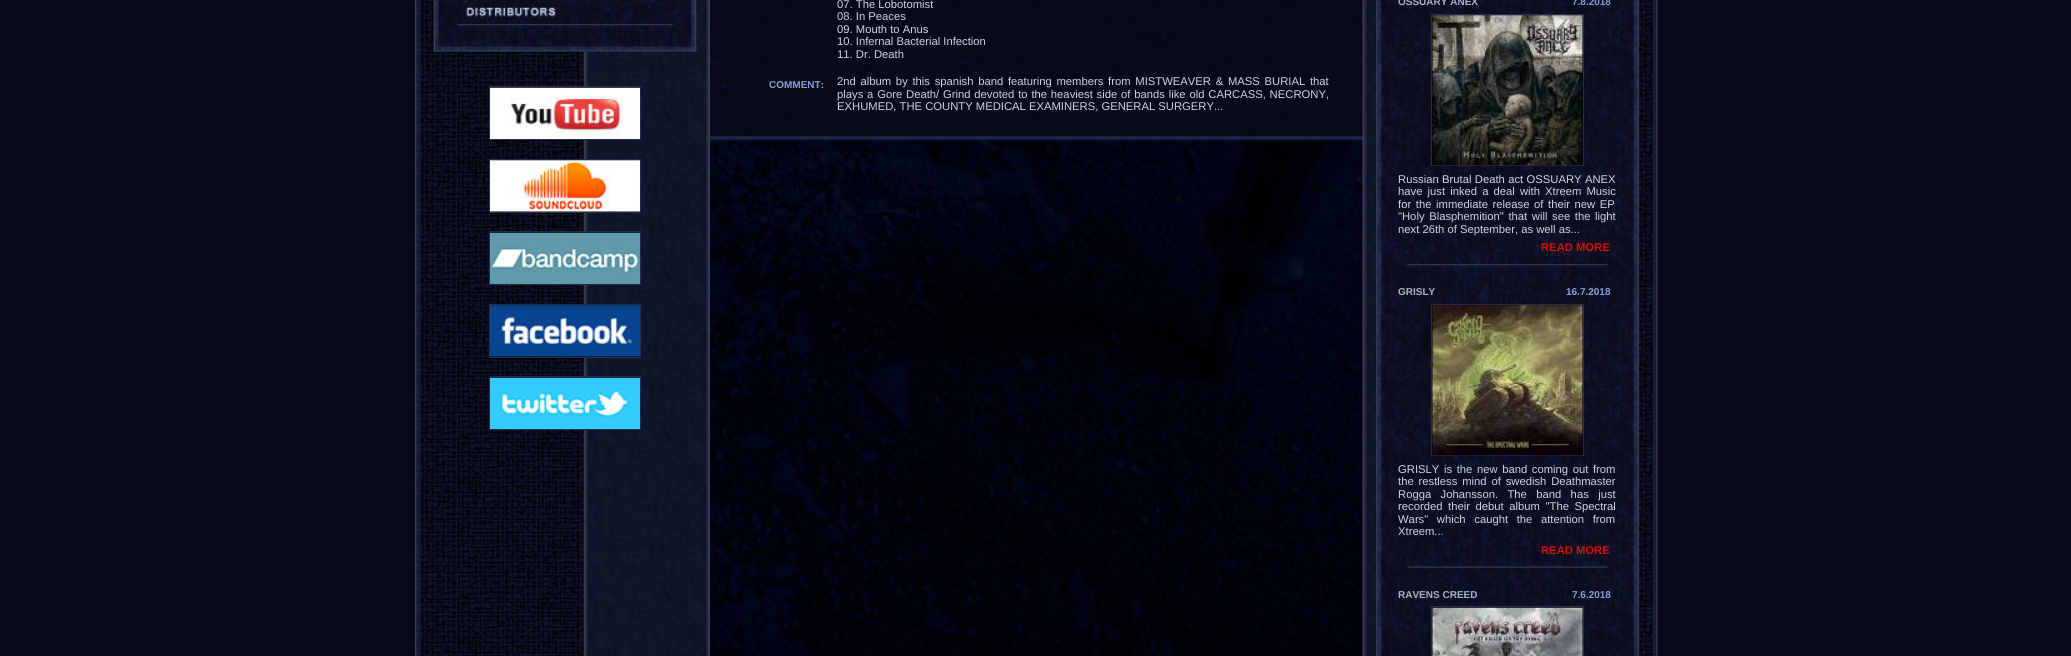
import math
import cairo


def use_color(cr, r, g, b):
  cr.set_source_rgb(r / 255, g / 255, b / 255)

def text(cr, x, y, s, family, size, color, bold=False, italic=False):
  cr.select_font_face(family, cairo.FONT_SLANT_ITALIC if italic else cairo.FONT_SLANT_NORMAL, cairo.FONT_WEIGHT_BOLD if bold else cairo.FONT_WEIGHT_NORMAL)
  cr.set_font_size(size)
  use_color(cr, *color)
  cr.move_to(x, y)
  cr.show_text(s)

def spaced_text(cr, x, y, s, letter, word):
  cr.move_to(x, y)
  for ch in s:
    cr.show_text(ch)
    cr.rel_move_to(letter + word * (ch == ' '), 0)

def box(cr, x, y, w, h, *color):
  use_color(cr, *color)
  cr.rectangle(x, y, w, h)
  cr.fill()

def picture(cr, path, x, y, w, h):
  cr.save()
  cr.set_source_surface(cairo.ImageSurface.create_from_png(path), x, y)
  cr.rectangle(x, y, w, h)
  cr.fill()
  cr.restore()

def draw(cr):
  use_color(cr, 7, 10, 23)
  cr.paint()
  picture(cr, "img_01.png", 415, 0, 295, 656)
  picture(cr, "img_02.png", 433, 0, 264, 52)
  picture(cr, "img_03.png", 457, 3, 203, 18)
  picture(cr, "img_04.png", 457, 24, 216, 2)
  picture(cr, "img_05.png", 433, 46, 264, 6)
  box(cr, 490, 87, 150, 1, 0, 0, 0)
  cr.rectangle(489.5, 86.5, 151, 53)
  use_color(cr, 36, 44, 81)
  cr.set_line_width(1)
  cr.stroke()
  picture(cr, "img_06.png", 490, 87, 150, 52)
  use_color(cr, 0, 0, 0)
  cr.rectangle(489.5, 159.5, 151, 53)
  cr.fill_preserve()
  use_color(cr, 36, 44, 81)
  cr.stroke()
  picture(cr, "img_07.png", 490, 160, 150, 52)
  box(cr, 490, 232, 150, 1, 0, 0, 0)
  cr.rectangle(489.5, 231.5, 151, 53)
  use_color(cr, 36, 44, 81)
  cr.stroke()
  picture(cr, "img_08.png", 490, 232, 150, 52)
  use_color(cr, 0, 0, 0)
  cr.rectangle(489.5, 304.5, 151, 53)
  cr.fill_preserve()
  use_color(cr, 36, 44, 81)
  cr.stroke()
  picture(cr, "img_09.png", 490, 305, 150, 52)
  box(cr, 490, 377, 150, 1, 0, 0, 0)
  cr.rectangle(489.5, 376.5, 151, 53)
  use_color(cr, 36, 44, 81)
  cr.stroke()
  picture(cr, "img_10.png", 490, 377, 150, 52)
  picture(cr, "img_11.png", 710, 0, 653, 656)
  picture(cr, "img_12.png", 710, 0, 653, 137)
  picture(cr, "img_13.png", 710, 136, 653, 5)
  picture(cr, "img_14.png", 1362, 0, 296, 656)
  picture(cr, "img_15.png", 1376, 0, 263, 656)
  use_color(cr, 0, 0, 0)
  cr.rectangle(1431.5, 14.5, 152, 151)
  cr.fill_preserve()
  use_color(cr, 36, 44, 81)
  cr.stroke()
  picture(cr, "img_16.png", 1432, 15, 151, 151)
  picture(cr, "img_17.png", 1407, 264, 201, 2)
  use_color(cr, 0, 0, 0)
  cr.rectangle(1431.5, 304.5, 152, 151)
  cr.fill_preserve()
  use_color(cr, 36, 44, 81)
  cr.stroke()
  picture(cr, "img_18.png", 1432, 305, 151, 151)
  picture(cr, "img_19.png", 1407, 566, 201, 2)
  use_color(cr, 0, 0, 0)
  cr.rectangle(1431.5, 606.5, 152, 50)
  cr.fill_preserve()
  use_color(cr, 36, 44, 81)
  cr.stroke()
  picture(cr, "img_20.png", 1432, 607, 151, 49)
  text(cr, 837, 8, "07. The Lobotomist", "Liberation Sans", 11.25, (207, 211, 223))
  text(cr, 837, 20, "08. In Peaces", "Liberation Sans", 11.25, (207, 211, 223))
  text(cr, 837, 33, "09. Mouth to Anus", "Liberation Sans", 11.25, (207, 211, 223))
  text(cr, 837, 45, "10. Infernal Bacterial Infection", "Liberation Sans", 11.25, (207, 211, 223))
  text(cr, 837, 58, "11. Dr. Death", "Liberation Sans", 11.25, (207, 211, 223))
  text(cr, 769, 88, "COMMENT:", "Liberation Sans", 10, (141, 156, 213), bold=True)
  cr.select_font_face("Liberation Sans")
  cr.set_font_size(11.25)
  use_color(cr, 207, 211, 223)
  spaced_text(cr, 837, 85, "2nd album by this spanish band featuring members from MISTWEAVER & MASS BURIAL that", 0, 1.6)
  spaced_text(cr, 837, 98, "plays a Gore Death/ Grind devoted to the heaviest side of bands like old CARCASS, NECRONY,", 0, 0.7)
  text(cr, 837, 110, "EXHUMED, THE COUNTY MEDICAL EXAMINERS, GENERAL SURGERY...", "Liberation Sans", 11.25, (207, 211, 223))
  text(cr, 1398, 5, "OSSUARY ANEX", "Liberation Sans", 10, (171, 177, 196), bold=True)
  text(cr, 1572, 5, "7.8.2018", "Liberation Sans", 10, (141, 156, 213), bold=True)
  cr.select_font_face("Liberation Sans")
  cr.set_font_size(11.25)
  use_color(cr, 207, 211, 223)
  spaced_text(cr, 1398, 183, "Russian Brutal Death act OSSUARY ANEX", 0, 0.25)
  spaced_text(cr, 1398, 195, "have just inked a deal with Xtreem Music", 0, 2)
  spaced_text(cr, 1398, 208, "for the immediate release of their new EP", 0, 1.5)
  spaced_text(cr, 1398, 220, "\"Holy Blasphemition\" that will see the light", 0, 1.5)
  text(cr, 1398, 233, "next 26th of September, as well as...", "Liberation Sans", 11.25, (207, 211, 223))
  text(cr, 1541, 251, "READ MORE", "Liberation Sans", 11.25, (216, 10, 10), bold=True)
  text(cr, 1398, 295, "GRISLY", "Liberation Sans", 10, (171, 177, 196), bold=True)
  text(cr, 1566, 295, "16.7.2018", "Liberation Sans", 10, (141, 156, 213), bold=True)
  cr.select_font_face("Liberation Sans")
  cr.set_font_size(11.25)
  use_color(cr, 207, 211, 223)
  spaced_text(cr, 1398, 473, "GRISLY is the new band coming out from", 0, 1.5)
  spaced_text(cr, 1398, 485, "the restless mind of swedish Deathmaster", 0, 1.75)
  spaced_text(cr, 1398, 498, "Rogga Johansson. The band has just", 0, 6.25)
  spaced_text(cr, 1398, 510, "recorded their debut album \"The Spectral", 0, 2.5)
  spaced_text(cr, 1398, 523, "Wars\" which caught the attention from", 0, 5.5)
  text(cr, 1398, 535, "Xtreem...", "Liberation Sans", 11.25, (207, 211, 223))
  text(cr, 1541, 554, "READ MORE", "Liberation Sans", 11.25, (216, 10, 10), bold=True)
  text(cr, 1398, 598, "RAVENS CREED", "Liberation Sans", 10, (171, 177, 196), bold=True)
  text(cr, 1572, 598, "7.6.2018", "Liberation Sans", 10, (141, 156, 213), bold=True)


surface = cairo.ImageSurface(cairo.FORMAT_RGB24, 2071, 656)
cr = cairo.Context(surface)
options = cairo.FontOptions()
options.set_hint_metrics(cairo.HINT_METRICS_OFF)
options.set_hint_style(cairo.HINT_STYLE_NONE)
cr.set_font_options(options)
cr.set_miter_limit(4)
draw(cr)
surface.write_to_png("out.png")
